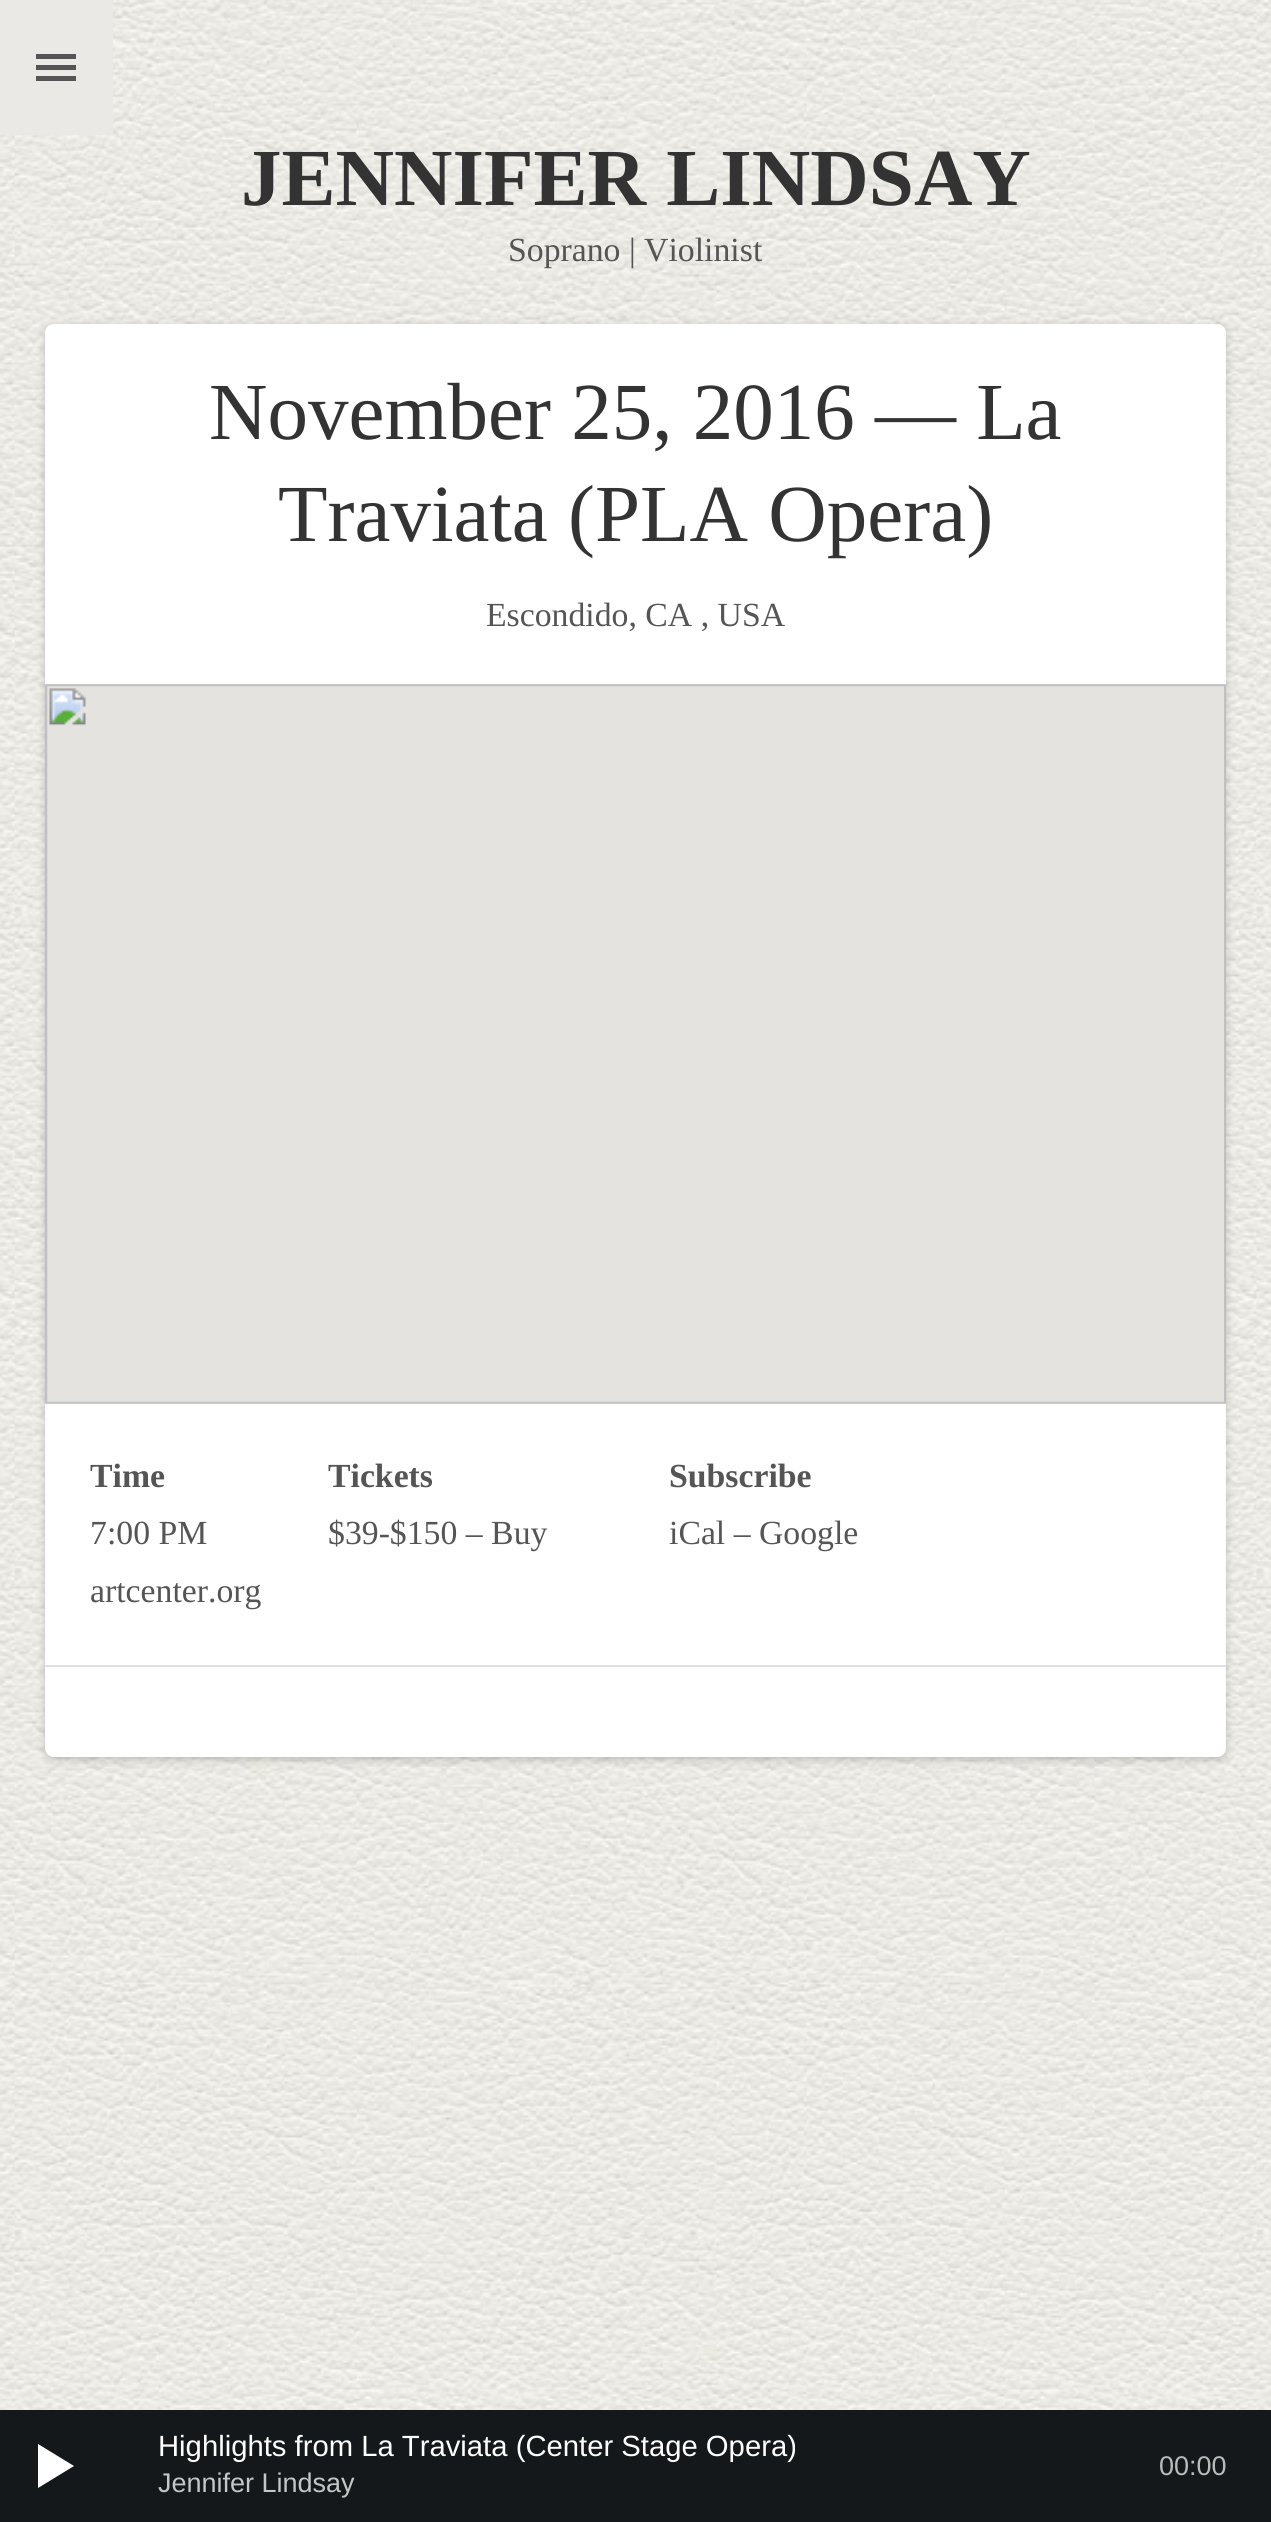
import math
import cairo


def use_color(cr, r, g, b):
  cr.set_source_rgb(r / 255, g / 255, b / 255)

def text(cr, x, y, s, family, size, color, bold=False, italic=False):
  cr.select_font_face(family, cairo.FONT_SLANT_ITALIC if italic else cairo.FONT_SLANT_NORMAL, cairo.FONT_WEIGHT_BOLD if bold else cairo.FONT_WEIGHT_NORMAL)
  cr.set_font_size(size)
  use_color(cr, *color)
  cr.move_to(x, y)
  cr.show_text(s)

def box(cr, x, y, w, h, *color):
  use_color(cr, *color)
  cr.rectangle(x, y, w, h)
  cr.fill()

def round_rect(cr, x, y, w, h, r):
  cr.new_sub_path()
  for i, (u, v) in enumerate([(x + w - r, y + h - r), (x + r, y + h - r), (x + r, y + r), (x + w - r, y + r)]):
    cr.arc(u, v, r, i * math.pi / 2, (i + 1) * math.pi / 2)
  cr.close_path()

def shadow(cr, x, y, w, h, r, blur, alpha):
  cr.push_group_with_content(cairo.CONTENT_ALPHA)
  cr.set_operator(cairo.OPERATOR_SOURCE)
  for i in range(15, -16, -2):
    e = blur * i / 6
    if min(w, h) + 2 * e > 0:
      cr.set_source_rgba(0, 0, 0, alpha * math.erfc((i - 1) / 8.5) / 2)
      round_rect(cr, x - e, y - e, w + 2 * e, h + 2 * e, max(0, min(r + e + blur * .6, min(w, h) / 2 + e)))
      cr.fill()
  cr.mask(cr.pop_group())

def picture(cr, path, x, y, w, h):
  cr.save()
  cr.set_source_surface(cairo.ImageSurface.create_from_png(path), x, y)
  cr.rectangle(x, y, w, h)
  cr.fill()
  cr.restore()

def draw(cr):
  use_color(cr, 255, 255, 255)
  cr.paint()
  picture(cr, "img_01.png", 0, 0, 1271, 2410)
  box(cr, 0, 0, 113, 135, 234, 233, 229)
  use_color(cr, 85, 85, 85)
  cr.new_path()
  cr.move_to(36, 81)
  cr.line_to(76, 81)
  cr.line_to(76, 76)
  cr.line_to(36, 76)
  cr.close_path()
  cr.move_to(36, 70)
  cr.line_to(76, 70)
  cr.line_to(76, 65)
  cr.line_to(36, 65)
  cr.close_path()
  cr.move_to(36, 59)
  cr.line_to(76, 59)
  cr.line_to(76, 54)
  cr.line_to(36, 54)
  cr.close_path()
  cr.fill()
  use_color(cr, 0, 0, 0)
  shadow(cr, 45, 326, 1181, 1434, 9, 4.5, 0.2)
  use_color(cr, 255, 255, 255)
  round_rect(cr, 45, 324, 1181, 1433, 9)
  cr.fill()
  picture(cr, "img_02.png", 45, 684, 1181, 720)
  box(cr, 45, 1665, 1181, 2, 224, 224, 224)
  box(cr, 0, 2410, 1271, 112, 20, 24, 26)
  use_color(cr, 255, 255, 255)
  cr.new_path()
  cr.move_to(74, 2466)
  cr.line_to(38, 2488)
  cr.line_to(38, 2444)
  cr.close_path()
  cr.fill()
  text(cr, 241, 205, "JENNIFER LINDSAY", "Liberation Serif", 81, (51, 51, 51), bold=True)
  text(cr, 508, 261, "Soprano | Violinist", "Liberation Serif", 33.75, (85, 85, 85))
  text(cr, 209, 439, "November 25, 2016 — La", "Liberation Serif", 81, (51, 51, 51))
  text(cr, 278, 541, "Traviata (PLA Opera)", "Liberation Serif", 81, (51, 51, 51))
  text(cr, 486, 626, "Escondido, CA , USA", "Liberation Serif", 33.75, (85, 85, 85))
  text(cr, 90, 1487, "Time", "Liberation Serif", 33.75, (85, 85, 85), bold=True)
  text(cr, 90, 1544, "7:00 PM", "Liberation Serif", 33.75, (85, 85, 85))
  text(cr, 328, 1487, "Tickets", "Liberation Serif", 33.75, (85, 85, 85), bold=True)
  text(cr, 328, 1544, "$39-$150 – Buy", "Liberation Serif", 33.75, (85, 85, 85))
  text(cr, 669, 1487, "Subscribe", "Liberation Serif", 33.75, (85, 85, 85), bold=True)
  text(cr, 669, 1544, "iCal – Google", "Liberation Serif", 33.75, (85, 85, 85))
  text(cr, 90, 1602, "artcenter.org", "Liberation Serif", 33.75, (85, 85, 85))
  text(cr, 158, 2456, "Highlights from La Traviata (Center Stage Opera)", "Liberation Sans", 29.25, (255, 255, 255))
  text(cr, 158, 2492, "Jennifer Lindsay", "Liberation Sans", 27, (196, 197, 198))
  text(cr, 1159, 2475, "00:00", "Liberation Sans", 27, (185, 186, 186))


surface = cairo.ImageSurface(cairo.FORMAT_RGB24, 1271, 2522)
cr = cairo.Context(surface)
options = cairo.FontOptions()
options.set_hint_metrics(cairo.HINT_METRICS_OFF)
options.set_hint_style(cairo.HINT_STYLE_NONE)
cr.set_font_options(options)
cr.set_miter_limit(4)
draw(cr)
surface.write_to_png("out.png")
